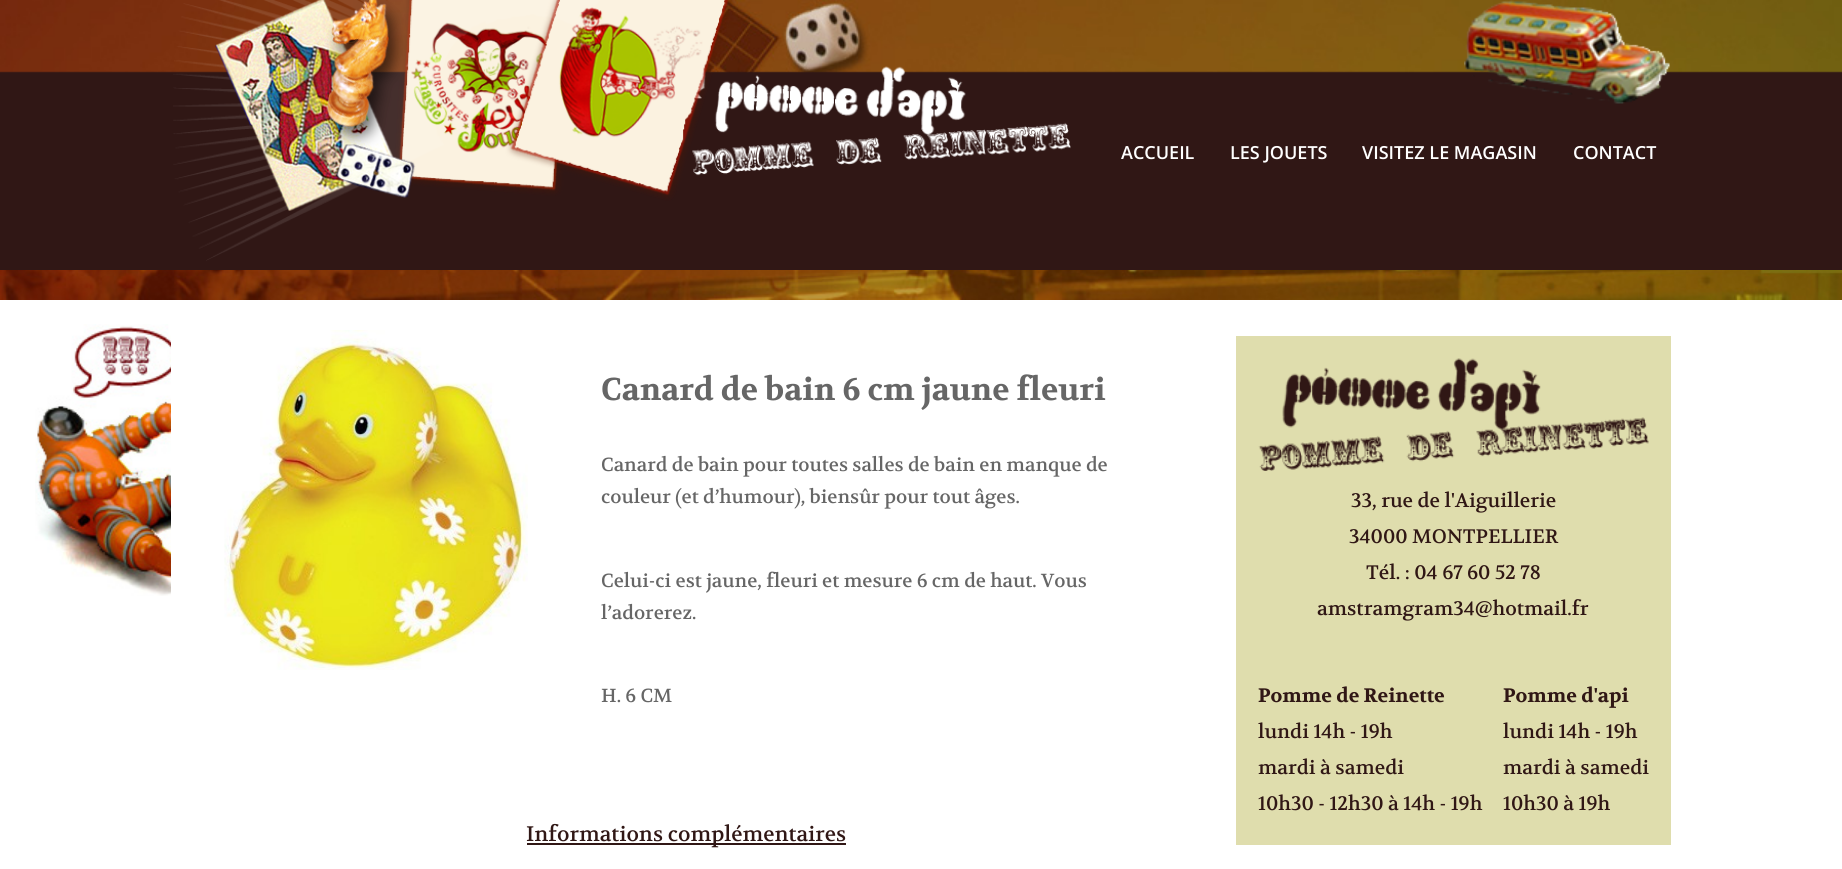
import math
import cairo


def use_color(cr, r, g, b):
  cr.set_source_rgb(r / 255, g / 255, b / 255)

def text(cr, x, y, s, family, size, color, bold=False, italic=False):
  cr.select_font_face(family, cairo.FONT_SLANT_ITALIC if italic else cairo.FONT_SLANT_NORMAL, cairo.FONT_WEIGHT_BOLD if bold else cairo.FONT_WEIGHT_NORMAL)
  cr.set_font_size(size)
  use_color(cr, *color)
  cr.move_to(x, y)
  cr.show_text(s)

def box(cr, x, y, w, h, *color):
  use_color(cr, *color)
  cr.rectangle(x, y, w, h)
  cr.fill()

def picture(cr, path, x, y, w, h):
  cr.save()
  cr.set_source_surface(cairo.ImageSurface.create_from_png(path), x, y)
  cr.rectangle(x, y, w, h)
  cr.fill()
  cr.restore()

def draw(cr):
  use_color(cr, 255, 255, 255)
  cr.paint()
  picture(cr, "img_01.png", 0, 0, 1842, 300)
  picture(cr, "img_02.png", 0, 71, 1842, 199)
  picture(cr, "img_03.png", 1464, 0, 206, 104)
  picture(cr, "img_04.png", 173, 0, 898, 261)
  picture(cr, "img_05.png", 35, 324, 136, 272)
  picture(cr, "img_06.png", 224, 330, 304, 340)
  box(cr, 527, 843, 319, 2, 48, 23, 21)
  box(cr, 1236, 336, 435, 509, 223, 221, 173)
  picture(cr, "img_07.png", 1258, 358, 391, 113)
  text(cr, 1121, 159, "ACCUEIL", "Open Sans SemiBold", 18, (255, 255, 255))
  text(cr, 1230, 159, "LES JOUETS", "Open Sans SemiBold", 18, (255, 255, 255))
  text(cr, 1362, 159, "VISITEZ LE MAGASIN", "Open Sans SemiBold", 18, (255, 255, 255))
  text(cr, 1573, 159, "CONTACT", "Open Sans SemiBold", 18, (255, 255, 255))
  text(cr, 601, 400, "Canard de bain 6 cm jaune fleuri", "Volkhov", 31.5, (102, 102, 102), bold=True)
  text(cr, 601, 471, "Canard de bain pour toutes salles de bain en manque de", "Volkhov", 18.9, (102, 102, 102))
  text(cr, 601, 503, "couleur (et d’humour), biensûr pour tout âges.", "Volkhov", 18.9, (102, 102, 102))
  text(cr, 601, 587, "Celui-ci est jaune, fleuri et mesure 6 cm de haut. Vous", "Volkhov", 18.9, (102, 102, 102))
  text(cr, 601, 619, "l’adorerez.", "Volkhov", 18.9, (102, 102, 102))
  text(cr, 601, 702, "H. 6 CM", "Volkhov", 18.9, (102, 102, 102))
  text(cr, 526, 841, "Informations complémentaires", "Volkhov", 21, (48, 23, 21))
  text(cr, 1351, 507, "33, rue de l'Aiguillerie", "Volkhov", 19.5, (48, 23, 21))
  text(cr, 1349, 543, "34000 MONTPELLIER", "Volkhov", 19.5, (48, 23, 21))
  text(cr, 1366, 579, "Tél. : 04 67 60 52 78", "Volkhov", 19.5, (48, 23, 21))
  text(cr, 1317, 615, "amstramgram34@hotmail.fr", "Volkhov", 19.5, (48, 23, 21))
  text(cr, 1258, 702, "Pomme de Reinette", "Volkhov", 19.5, (48, 23, 21), bold=True)
  text(cr, 1258, 738, "lundi 14h - 19h", "Volkhov", 19.5, (48, 23, 21))
  text(cr, 1258, 774, "mardi à samedi", "Volkhov", 19.5, (48, 23, 21))
  text(cr, 1258, 810, "10h30 - 12h30 à 14h - 19h", "Volkhov", 19.5, (48, 23, 21))
  text(cr, 1503, 702, "Pomme d'api", "Volkhov", 19.5, (48, 23, 21), bold=True)
  text(cr, 1503, 738, "lundi 14h - 19h", "Volkhov", 19.5, (48, 23, 21))
  text(cr, 1503, 774, "mardi à samedi", "Volkhov", 19.5, (48, 23, 21))
  text(cr, 1503, 810, "10h30 à 19h", "Volkhov", 19.5, (48, 23, 21))


surface = cairo.ImageSurface(cairo.FORMAT_RGB24, 1842, 869)
cr = cairo.Context(surface)
options = cairo.FontOptions()
options.set_hint_metrics(cairo.HINT_METRICS_OFF)
options.set_hint_style(cairo.HINT_STYLE_NONE)
cr.set_font_options(options)
cr.set_miter_limit(4)
draw(cr)
surface.write_to_png("out.png")
